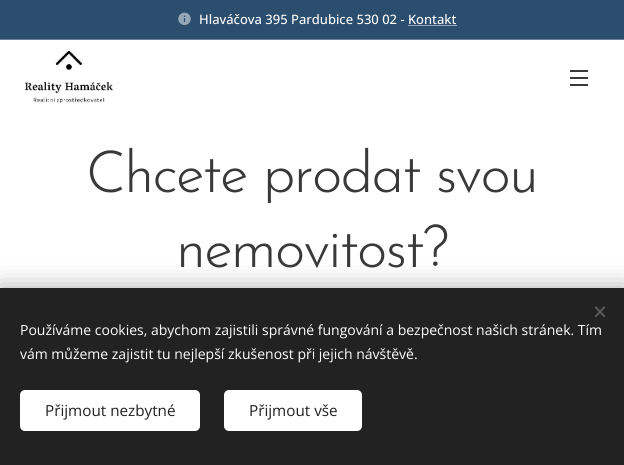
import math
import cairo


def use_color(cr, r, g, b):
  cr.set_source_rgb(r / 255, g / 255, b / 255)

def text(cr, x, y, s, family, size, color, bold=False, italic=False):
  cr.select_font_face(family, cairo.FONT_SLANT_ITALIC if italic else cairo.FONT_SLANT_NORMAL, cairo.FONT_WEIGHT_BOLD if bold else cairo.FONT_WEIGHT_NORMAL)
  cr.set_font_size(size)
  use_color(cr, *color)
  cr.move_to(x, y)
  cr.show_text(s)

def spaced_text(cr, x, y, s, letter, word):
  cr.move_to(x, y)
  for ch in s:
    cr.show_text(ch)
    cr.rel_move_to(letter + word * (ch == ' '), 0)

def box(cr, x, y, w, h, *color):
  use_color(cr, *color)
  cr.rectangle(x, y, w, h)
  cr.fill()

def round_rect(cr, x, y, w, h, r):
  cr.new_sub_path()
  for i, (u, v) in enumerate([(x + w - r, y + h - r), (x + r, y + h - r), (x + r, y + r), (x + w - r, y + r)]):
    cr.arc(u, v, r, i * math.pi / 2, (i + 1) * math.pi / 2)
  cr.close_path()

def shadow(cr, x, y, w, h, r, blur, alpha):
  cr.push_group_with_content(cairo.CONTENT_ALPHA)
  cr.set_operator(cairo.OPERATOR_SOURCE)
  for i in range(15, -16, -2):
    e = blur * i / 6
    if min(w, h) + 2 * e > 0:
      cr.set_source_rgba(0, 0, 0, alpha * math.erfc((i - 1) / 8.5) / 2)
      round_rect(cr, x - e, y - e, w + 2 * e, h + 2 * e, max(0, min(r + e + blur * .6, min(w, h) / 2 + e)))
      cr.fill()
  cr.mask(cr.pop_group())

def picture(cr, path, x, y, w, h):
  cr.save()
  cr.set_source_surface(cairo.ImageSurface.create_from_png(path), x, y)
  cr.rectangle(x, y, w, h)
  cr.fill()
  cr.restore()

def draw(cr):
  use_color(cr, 255, 255, 255)
  cr.paint()
  box(cr, 0, 0, 624, 39, 43, 77, 110)
  picture(cr, "img_01.png", 178, 12, 13, 14)
  box(cr, 408, 25, 49, 1, 149, 166, 183)
  box(cr, 0, 39, 624, 1, 107, 130, 154)
  picture(cr, "img_02.png", 25, 51, 88, 52)
  box(cr, 570, 77, 18, 2, 57, 57, 57)
  box(cr, 570, 70, 18, 2, 57, 57, 57)
  box(cr, 570, 84, 18, 2, 57, 57, 57)
  use_color(cr, 0, 0, 0)
  shadow(cr, 0, 288, 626, 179, 0, 12.5, 0.33)
  box(cr, 0, 288, 624, 177, 34, 34, 34)
  use_color(cr, 85, 85, 85)
  cr.new_path()
  cr.move_to(594.5, 316)
  cr.line_to(604, 306)
  cr.line_to(605.5, 307.5)
  cr.line_to(596, 317.5)
  cr.close_path()
  cr.fill()
  cr.new_path()
  cr.move_to(596, 306)
  cr.line_to(605.5, 316)
  cr.line_to(604, 317.5)
  cr.line_to(594.5, 307.5)
  cr.close_path()
  cr.fill()
  use_color(cr, 255, 255, 255)
  round_rect(cr, 20, 390, 180, 41, 5)
  cr.fill()
  round_rect(cr, 224, 390, 138, 41, 5)
  cr.fill()
  text(cr, 199, 24, "Hlaváčova 395 Pardubice 530 02 - Kontakt", "Open Sans Medium", 13, (255, 255, 255))
  cr.select_font_face("Josefin Sans Light")
  cr.set_font_size(58)
  use_color(cr, 57, 57, 57)
  spaced_text(cr, 86, 192, "Chcete prodat svou", -1.75, 0)
  spaced_text(cr, 176, 267, "nemovitost?", -1.75, 0)
  text(cr, 20, 335, "Používáme cookies, abychom zajistili správné fungování a bezpečnost našich stránek. Tím", "Open Sans", 14, (255, 255, 255))
  text(cr, 20, 359, "vám můžeme zajistit tu nejlepší zkušenost při jejich návštěvě.", "Open Sans", 14, (255, 255, 255))
  text(cr, 45, 416, "Přijmout nezbytné", "Open Sans", 15.25, (34, 34, 34))
  text(cr, 249, 416, "Přijmout vše", "Open Sans", 15.25, (34, 34, 34))


surface = cairo.ImageSurface(cairo.FORMAT_RGB24, 624, 465)
cr = cairo.Context(surface)
options = cairo.FontOptions()
options.set_hint_metrics(cairo.HINT_METRICS_OFF)
options.set_hint_style(cairo.HINT_STYLE_NONE)
cr.set_font_options(options)
cr.set_miter_limit(4)
draw(cr)
surface.write_to_png("out.png")
